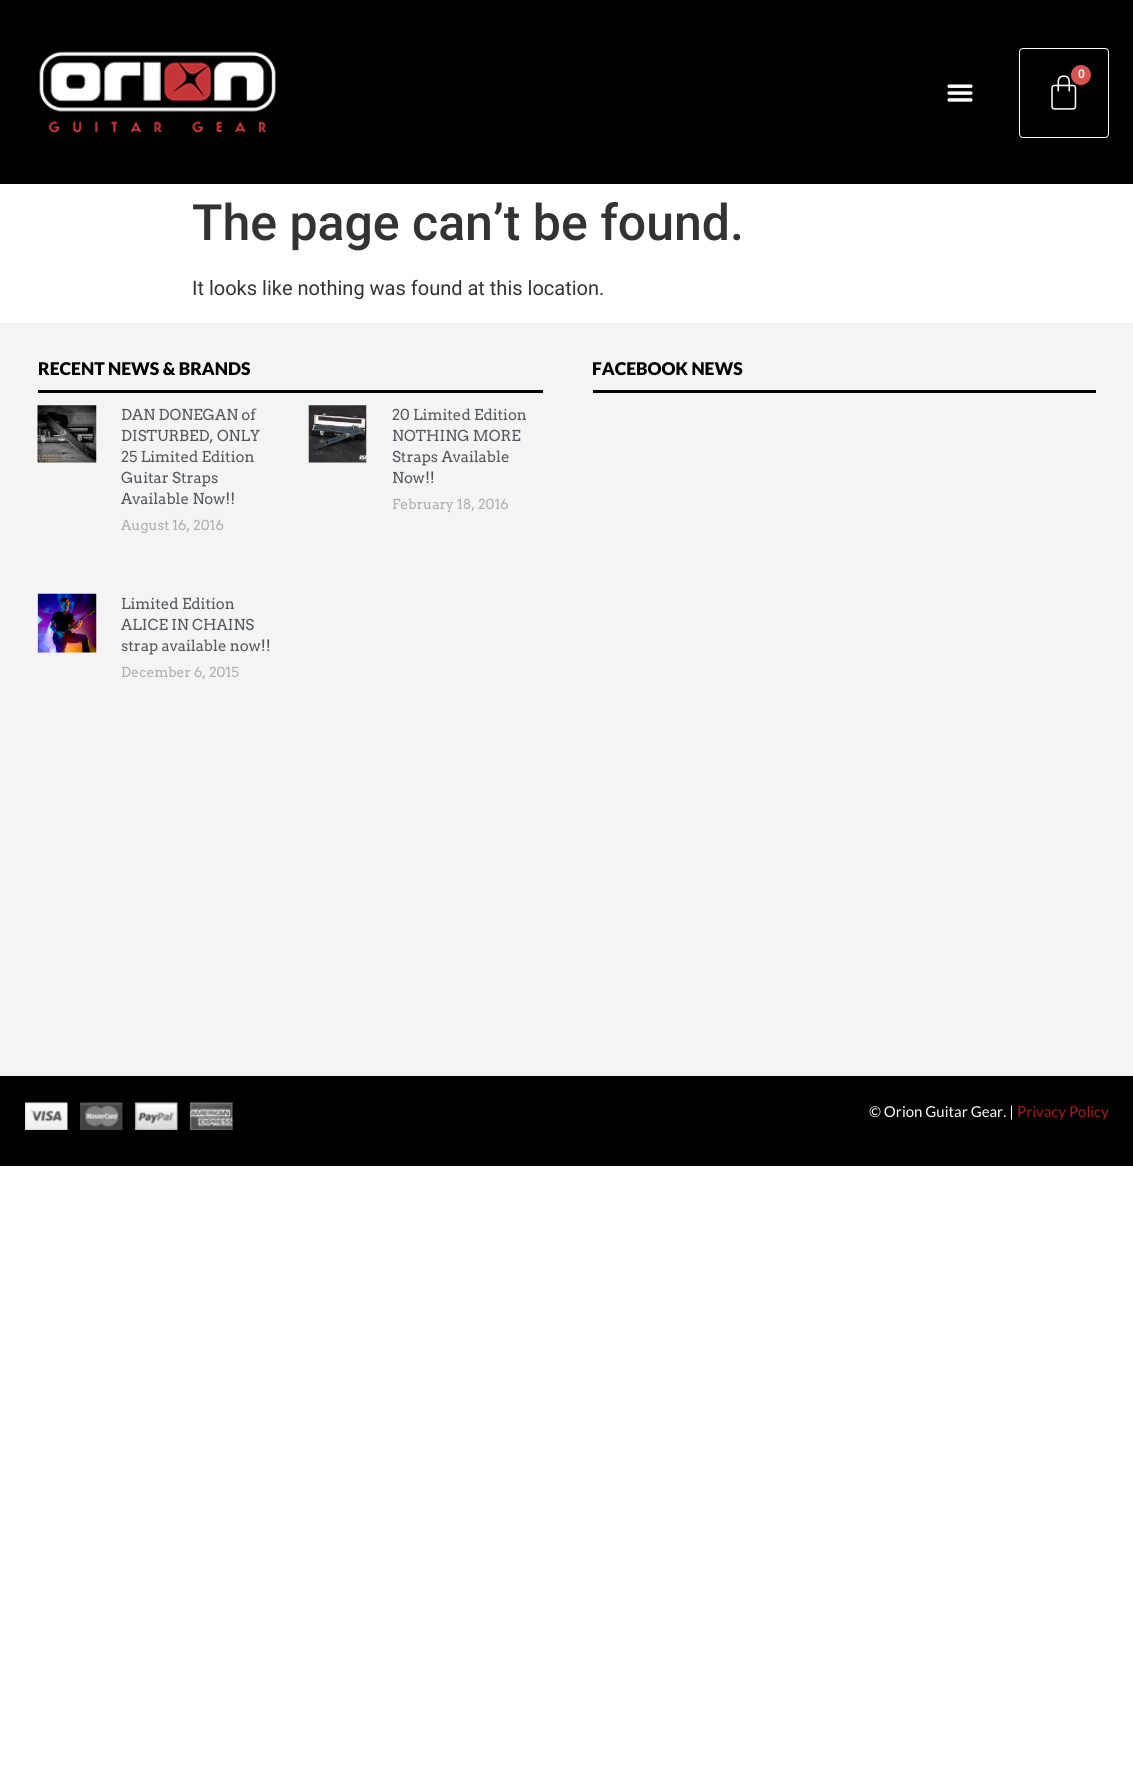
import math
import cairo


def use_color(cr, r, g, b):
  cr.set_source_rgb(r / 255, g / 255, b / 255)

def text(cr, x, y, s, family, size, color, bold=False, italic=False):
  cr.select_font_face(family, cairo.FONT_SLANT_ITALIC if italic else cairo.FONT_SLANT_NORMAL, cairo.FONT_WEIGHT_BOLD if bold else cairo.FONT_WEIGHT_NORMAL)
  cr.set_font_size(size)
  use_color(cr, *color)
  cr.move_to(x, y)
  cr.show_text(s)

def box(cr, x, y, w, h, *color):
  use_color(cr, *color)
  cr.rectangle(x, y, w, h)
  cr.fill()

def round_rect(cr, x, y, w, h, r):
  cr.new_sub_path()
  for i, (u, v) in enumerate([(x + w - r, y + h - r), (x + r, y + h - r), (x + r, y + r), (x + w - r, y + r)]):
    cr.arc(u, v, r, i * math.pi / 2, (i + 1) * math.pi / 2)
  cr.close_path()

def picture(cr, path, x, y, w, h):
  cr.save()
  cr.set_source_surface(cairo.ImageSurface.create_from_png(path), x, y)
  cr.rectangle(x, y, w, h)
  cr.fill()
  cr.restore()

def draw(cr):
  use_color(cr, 255, 255, 255)
  cr.paint()
  box(cr, 0, 0, 1133, 184, 0, 0, 0)
  picture(cr, "img_01.png", 39, 51, 237, 82)
  round_rect(cr, 1019.5, 48.5, 89, 89, 3.5)
  use_color(cr, 255, 255, 255)
  cr.set_line_width(1)
  cr.stroke()
  picture(cr, "img_02.png", 1051, 75, 26, 35)
  use_color(cr, 217, 83, 79)
  cr.arc(1081, 75, 10, 0, 2 * math.pi)
  cr.fill()
  picture(cr, "img_03.png", 947, 84, 26, 18)
  box(cr, 0, 323, 1133, 753, 244, 244, 244)
  box(cr, 38, 390, 505, 3, 0, 0, 0)
  picture(cr, "img_04.png", 37, 405, 60, 58)
  picture(cr, "img_05.png", 308, 405, 59, 58)
  picture(cr, "img_06.png", 37, 593, 60, 60)
  box(cr, 593, 390, 503, 3, 0, 0, 0)
  box(cr, 0, 1076, 1133, 90, 0, 0, 0)
  picture(cr, "img_07.png", 25, 1102, 208, 28)
  text(cr, 1078, 78, "0", "Roboto SemiBold", 12, (255, 255, 255))
  text(cr, 192, 240, "The page can’t be found.", "Roboto Medium", 50, (51, 51, 51))
  text(cr, 192, 295, "It looks like nothing was found at this location.", "Roboto", 20, (51, 51, 51))
  text(cr, 38, 375, "RECENT NEWS & BRANDS", "Lato Black", 17.5, (0, 0, 0))
  text(cr, 121, 420, "DAN DONEGAN of", "Arvo", 15, (84, 89, 95))
  text(cr, 121, 441, "DISTURBED, ONLY", "Arvo", 15, (84, 89, 95))
  text(cr, 121, 462, "25 Limited Edition", "Arvo", 15, (84, 89, 95))
  text(cr, 121, 483, "Guitar Straps", "Arvo", 15, (84, 89, 95))
  text(cr, 121, 504, "Available Now!!", "Arvo", 15, (84, 89, 95))
  text(cr, 121, 530, "August 16, 2016", "Arvo", 13.75, (173, 173, 173))
  text(cr, 392, 420, "20 Limited Edition", "Arvo", 15, (84, 89, 95))
  text(cr, 392, 441, "NOTHING MORE", "Arvo", 15, (84, 89, 95))
  text(cr, 392, 462, "Straps Available", "Arvo", 15, (84, 89, 95))
  text(cr, 392, 483, "Now!!", "Arvo", 15, (84, 89, 95))
  text(cr, 392, 509, "February 18, 2016", "Arvo", 13.75, (173, 173, 173))
  text(cr, 121, 609, "Limited Edition", "Arvo", 15, (84, 89, 95))
  text(cr, 121, 630, "ALICE IN CHAINS", "Arvo", 15, (84, 89, 95))
  text(cr, 121, 651, "strap available now!!", "Arvo", 15, (84, 89, 95))
  text(cr, 121, 677, "December 6, 2015", "Arvo", 13.75, (173, 173, 173))
  text(cr, 592, 375, "FACEBOOK NEWS", "Lato Black", 17.5, (0, 0, 0))
  text(cr, 869, 1117, "© Orion Guitar Gear. |", "Lato", 15, (255, 255, 255))
  text(cr, 1017, 1117, "Privacy Policy", "Lato", 15, (171, 24, 24))


surface = cairo.ImageSurface(cairo.FORMAT_RGB24, 1133, 1790)
cr = cairo.Context(surface)
options = cairo.FontOptions()
options.set_hint_metrics(cairo.HINT_METRICS_OFF)
options.set_hint_style(cairo.HINT_STYLE_NONE)
cr.set_font_options(options)
cr.set_miter_limit(4)
draw(cr)
surface.write_to_png("out.png")
